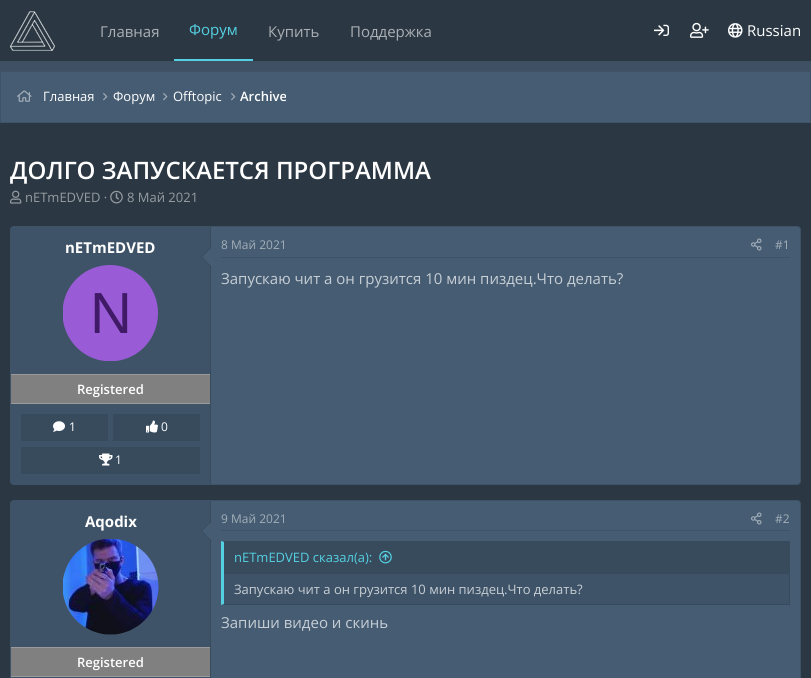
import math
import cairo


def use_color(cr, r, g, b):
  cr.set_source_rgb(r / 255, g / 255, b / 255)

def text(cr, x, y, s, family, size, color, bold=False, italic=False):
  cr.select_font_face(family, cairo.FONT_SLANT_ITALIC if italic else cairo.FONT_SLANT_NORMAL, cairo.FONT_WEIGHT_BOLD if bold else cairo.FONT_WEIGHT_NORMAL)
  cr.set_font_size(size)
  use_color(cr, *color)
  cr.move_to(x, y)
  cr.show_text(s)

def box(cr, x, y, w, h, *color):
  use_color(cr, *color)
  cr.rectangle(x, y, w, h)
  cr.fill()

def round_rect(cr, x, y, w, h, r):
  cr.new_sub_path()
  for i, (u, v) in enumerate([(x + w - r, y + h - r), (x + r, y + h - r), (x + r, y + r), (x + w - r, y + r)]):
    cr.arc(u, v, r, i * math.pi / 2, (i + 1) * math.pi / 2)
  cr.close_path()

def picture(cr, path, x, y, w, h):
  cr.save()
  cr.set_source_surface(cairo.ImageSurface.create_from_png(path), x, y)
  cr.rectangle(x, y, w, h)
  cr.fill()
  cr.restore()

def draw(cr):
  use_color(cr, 43, 56, 67)
  cr.paint()
  picture(cr, "img_01.png", 10, 11, 45, 40)
  box(cr, 174, 59, 79, 2, 84, 208, 226)
  picture(cr, "img_02.png", 654, 24, 15, 12)
  picture(cr, "img_03.png", 690, 22, 19, 16)
  picture(cr, "img_04.png", 728, 23, 15, 15)
  box(cr, 0, 61, 811, 10, 62, 80, 98)
  use_color(cr, 69, 92, 114)
  cr.rectangle(0.5, 71.5, 810, 51)
  cr.fill_preserve()
  use_color(cr, 62, 83, 103)
  cr.set_line_width(1)
  cr.stroke()
  picture(cr, "img_05.png", 17, 90, 15, 12)
  picture(cr, "img_06.png", 103, 93, 5, 8)
  picture(cr, "img_06.png", 163, 93, 5, 8)
  picture(cr, "img_06.png", 231, 93, 5, 8)
  picture(cr, "img_07.png", 10, 190, 12, 14)
  picture(cr, "img_08.png", 110, 190, 13, 14)
  use_color(cr, 69, 92, 114)
  round_rect(cr, 10, 226, 791, 259, 4)
  cr.fill()
  round_rect(cr, 10.5, 226.5, 790, 258, 3.5)
  cr.set_source_rgba(0, 0, 0, 0.1)
  cr.stroke()
  cr.new_path()
  cr.move_to(14, 227)
  cr.line_to(211, 227)
  cr.line_to(211, 484)
  cr.line_to(14, 484)
  cr.curve_to(12.5, 484, 11, 482.5, 11, 481)
  cr.line_to(11, 230)
  cr.curve_to(11, 228.5, 12.5, 227, 14, 227)
  cr.close_path()
  cr.fill()
  box(cr, 210, 227, 1, 257, 56, 75, 92)
  cr.set_source_rgba(0, 0, 0, 0.1)
  cr.new_path()
  cr.move_to(211, 247)
  cr.line_to(211, 267)
  cr.line_to(201, 257)
  cr.close_path()
  cr.fill()
  use_color(cr, 69, 92, 114)
  cr.new_path()
  cr.move_to(211, 248)
  cr.line_to(211, 266)
  cr.line_to(202, 257)
  cr.close_path()
  cr.fill()
  use_color(cr, 153, 92, 214)
  cr.new_path()
  cr.move_to(110, 265)
  cr.curve_to(137, 265, 158, 287, 158, 313)
  cr.curve_to(158, 338, 140, 358, 116, 361)
  cr.line_to(105, 361)
  cr.curve_to(84, 359, 66, 342, 63, 320)
  cr.line_to(63, 306)
  cr.curve_to(66, 283, 86, 265, 110, 265)
  cr.close_path()
  cr.fill()
  box(cr, 11, 375, 199, 28, 128, 128, 128)
  box(cr, 11, 374, 199, 1, 154, 154, 154)
  box(cr, 11, 403, 199, 1, 154, 154, 154)
  box(cr, 21, 414, 87, 27, 56, 75, 92)
  picture(cr, "img_09.png", 53, 421, 12, 11)
  box(cr, 113, 414, 87, 27, 56, 75, 92)
  picture(cr, "img_10.png", 146, 420, 12, 13)
  box(cr, 21, 447, 179, 27, 56, 75, 92)
  picture(cr, "img_11.png", 99, 453, 14, 13)
  box(cr, 221, 257, 569, 1, 62, 83, 103)
  picture(cr, "img_12.png", 751, 238, 11, 13)
  use_color(cr, 69, 92, 114)
  round_rect(cr, 10, 500, 791, 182, 4)
  cr.fill()
  round_rect(cr, 10.5, 500.5, 790, 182, 3.5)
  cr.set_source_rgba(0, 0, 0, 0.1)
  cr.stroke()
  cr.new_path()
  cr.move_to(14, 501)
  cr.line_to(211, 501)
  cr.line_to(211, 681)
  cr.line_to(14, 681)
  cr.curve_to(12.5, 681, 11, 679.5, 11, 678)
  cr.line_to(11, 504)
  cr.curve_to(11, 502.5, 12.5, 501, 14, 501)
  cr.close_path()
  cr.fill()
  box(cr, 210, 501, 1, 177, 56, 75, 92)
  cr.set_source_rgba(0, 0, 0, 0.1)
  cr.new_path()
  cr.move_to(211, 521)
  cr.line_to(211, 541)
  cr.line_to(201, 531)
  cr.close_path()
  cr.fill()
  use_color(cr, 69, 92, 114)
  cr.new_path()
  cr.move_to(211, 522)
  cr.line_to(211, 540)
  cr.line_to(202, 531)
  cr.close_path()
  cr.fill()
  cr.new_path()
  cr.move_to(63, 580)
  cr.curve_to(66, 559, 83, 542, 104, 539)
  cr.line_to(117, 539)
  cr.curve_to(140, 542, 158, 562, 158, 587)
  cr.curve_to(158, 613, 137, 635, 110, 635)
  cr.curve_to(86, 635, 66, 617, 63, 594)
  cr.close_path()
  cr.fill()
  picture(cr, "img_13.png", 63, 539, 96, 96)
  box(cr, 11, 648, 199, 28, 128, 128, 128)
  box(cr, 11, 647, 199, 1, 154, 154, 154)
  box(cr, 11, 676, 199, 1, 154, 154, 154)
  box(cr, 221, 530, 569, 1, 62, 83, 103)
  picture(cr, "img_12.png", 751, 512, 11, 13)
  box(cr, 221, 541, 569, 64, 62, 83, 103)
  use_color(cr, 56, 75, 93)
  cr.new_path()
  cr.move_to(221, 541)
  cr.line_to(790, 541)
  cr.line_to(789, 542)
  cr.line_to(224, 542)
  cr.close_path()
  cr.fill()
  cr.set_source_rgba(0, 0, 0, 0.1)
  cr.new_path()
  cr.move_to(790, 541)
  cr.line_to(790, 605)
  cr.line_to(789, 604)
  cr.line_to(789, 542)
  cr.close_path()
  cr.fill()
  cr.new_path()
  cr.move_to(790, 605)
  cr.line_to(221, 605)
  cr.line_to(224, 604)
  cr.line_to(789, 604)
  cr.close_path()
  cr.fill()
  use_color(cr, 84, 208, 226)
  cr.new_path()
  cr.move_to(221, 605)
  cr.line_to(221, 541)
  cr.line_to(224, 542)
  cr.line_to(224, 604)
  cr.close_path()
  cr.fill()
  box(cr, 224, 542, 565, 32, 56, 75, 93)
  picture(cr, "img_14.png", 379, 550, 13, 14)
  text(cr, 100, 37, "Главная", "Open Sans", 15, (170, 175, 180))
  text(cr, 189, 35, "Форум", "Open Sans", 15, (84, 208, 226))
  text(cr, 268, 37, "Купить", "Open Sans", 15, (170, 175, 180))
  text(cr, 350, 37, "Поддержка", "Open Sans", 15, (170, 175, 180))
  text(cr, 747, 36, "Russian", "Open Sans", 15, (255, 255, 255))
  text(cr, 43, 101, "Главная", "Open Sans", 13, (255, 255, 255))
  text(cr, 113, 101, "Форум", "Open Sans", 13, (255, 255, 255))
  text(cr, 173, 101, "Offtopic", "Open Sans", 13, (255, 255, 255))
  text(cr, 240, 101, "Archive", "Open Sans SemiBold", 13, (255, 255, 255))
  text(cr, 10, 179, "ДОЛГО ЗАПУСКАЕТСЯ ПРОГРАММА", "Open Sans SemiBold", 24, (255, 255, 255))
  text(cr, 25, 202, "nETmEDVED ·", "Open Sans", 13, (149, 156, 161))
  text(cr, 127, 202, "8 Май 2021", "Open Sans", 13, (149, 156, 161))
  text(cr, 65, 253, "nETmEDVED", "Open Sans", 15, (255, 255, 255), bold=True)
  text(cr, 90, 333, "N", "Liberation Sans", 58, (64, 26, 102))
  text(cr, 77, 394, "Registered", "Open Sans SemiBold", 13, (255, 255, 255))
  text(cr, 69, 431, "1", "Open Sans", 12, (255, 255, 255))
  text(cr, 161, 431, "0", "Open Sans", 12, (255, 255, 255))
  text(cr, 115, 464, "1", "Open Sans", 12, (255, 255, 255))
  text(cr, 221, 249, "8 Май 2021", "Open Sans", 12, (162, 174, 185))
  text(cr, 775, 249, "#1", "Open Sans", 12, (162, 174, 185))
  text(cr, 221, 284, "Запускаю чит а он грузится 10 мин пиздец.Что делать?", "Open Sans", 15, (199, 206, 213))
  text(cr, 85, 527, "Aqodix", "Open Sans", 15, (255, 255, 255), bold=True)
  text(cr, 77, 667, "Registered", "Open Sans SemiBold", 13, (255, 255, 255))
  text(cr, 221, 523, "9 Май 2021", "Open Sans", 12, (162, 174, 185))
  text(cr, 775, 523, "#2", "Open Sans", 12, (162, 174, 185))
  text(cr, 234, 562, "nETmEDVED сказал(а):", "Open Sans", 13, (84, 208, 226))
  text(cr, 234, 594, "Запускаю чит а он грузится 10 мин пиздец.Что делать?", "Open Sans", 13, (199, 206, 213))
  text(cr, 221, 628, "Запиши видео и скинь", "Open Sans", 15, (199, 206, 213))


surface = cairo.ImageSurface(cairo.FORMAT_RGB24, 811, 678)
cr = cairo.Context(surface)
options = cairo.FontOptions()
options.set_hint_metrics(cairo.HINT_METRICS_OFF)
options.set_hint_style(cairo.HINT_STYLE_NONE)
cr.set_font_options(options)
cr.set_miter_limit(4)
draw(cr)
surface.write_to_png("out.png")
